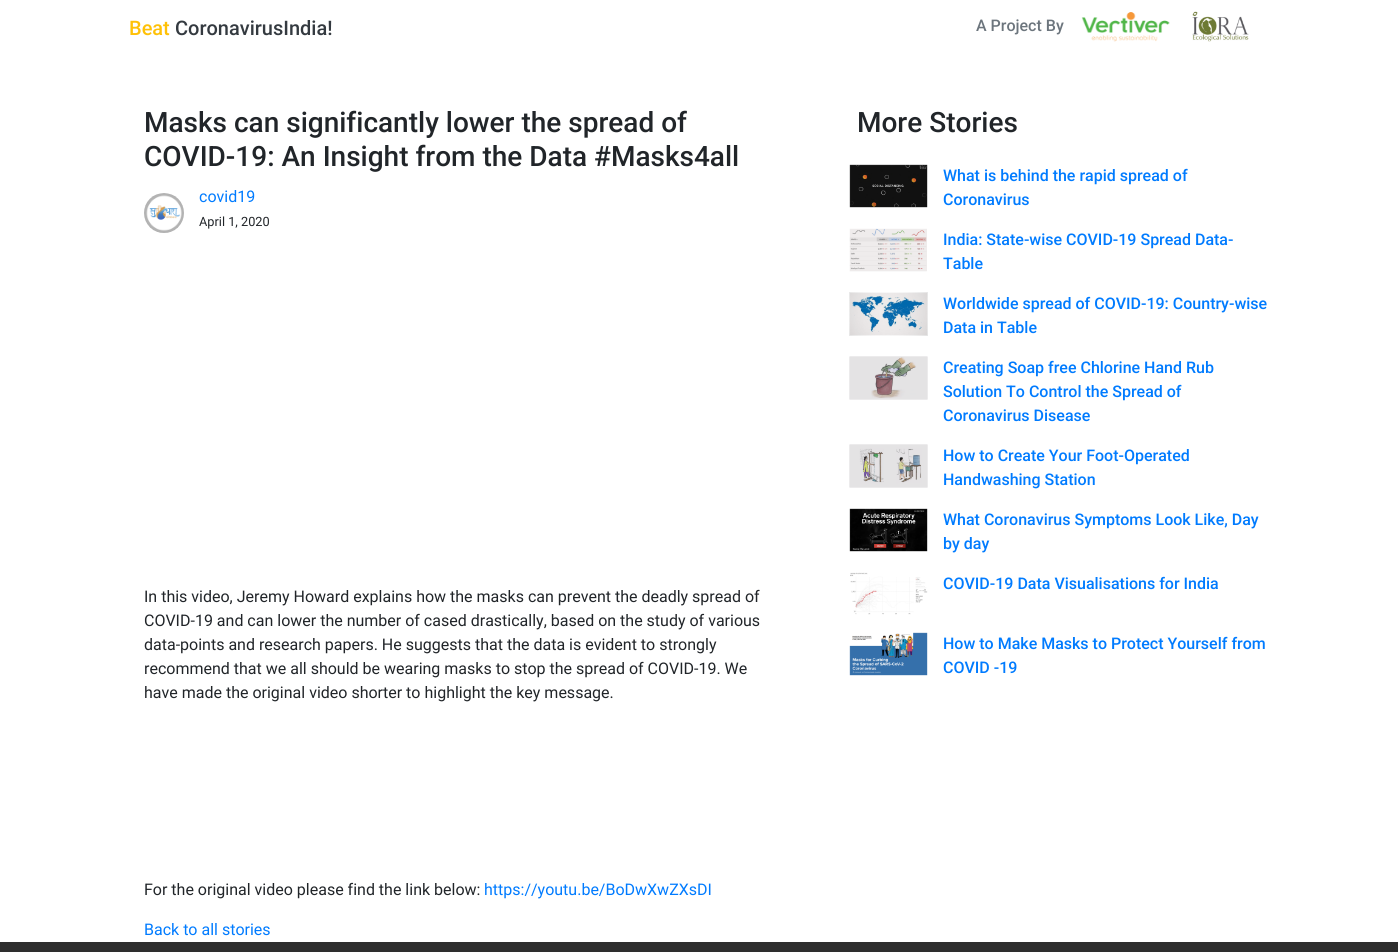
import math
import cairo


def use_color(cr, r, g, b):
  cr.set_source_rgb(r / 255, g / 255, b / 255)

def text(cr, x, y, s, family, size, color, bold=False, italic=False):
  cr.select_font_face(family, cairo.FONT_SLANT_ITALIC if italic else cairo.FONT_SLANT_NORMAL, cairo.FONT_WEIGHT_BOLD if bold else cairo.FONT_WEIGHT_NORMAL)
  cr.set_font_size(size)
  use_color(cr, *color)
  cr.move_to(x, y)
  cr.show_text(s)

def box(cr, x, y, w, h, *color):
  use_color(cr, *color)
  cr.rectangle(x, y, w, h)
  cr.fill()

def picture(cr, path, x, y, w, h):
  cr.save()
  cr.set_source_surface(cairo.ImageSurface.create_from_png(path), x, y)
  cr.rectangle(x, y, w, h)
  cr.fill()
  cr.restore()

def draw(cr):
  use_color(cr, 255, 255, 255)
  cr.paint()
  picture(cr, "img_01.png", 1081, 12, 89, 30)
  picture(cr, "img_02.png", 1192, 11, 57, 31)
  picture(cr, "img_03.png", 144, 193, 40, 40)
  picture(cr, "img_04.png", 849, 164, 79, 44)
  picture(cr, "img_05.png", 849, 228, 78, 44)
  picture(cr, "img_06.png", 849, 292, 79, 44)
  picture(cr, "img_07.png", 849, 356, 79, 44)
  picture(cr, "img_08.png", 849, 444, 79, 44)
  picture(cr, "img_09.png", 849, 508, 79, 44)
  picture(cr, "img_10.png", 850, 572, 78, 43)
  picture(cr, "img_11.png", 849, 632, 79, 44)
  box(cr, 0, 942, 1398, 10, 46, 46, 46)
  text(cr, 129, 35, "Beat", "Roboto Medium", 20, (255, 193, 7))
  text(cr, 175, 35, "CoronavirusIndia!", "Roboto Medium", 20, (52, 58, 64))
  text(cr, 976, 31, "A Project By", "Roboto Medium", 16, (108, 117, 125))
  text(cr, 144, 132, "Masks can significantly lower the spread of", "Roboto Medium", 28, (33, 37, 41))
  text(cr, 144, 166, "COVID-19: An Insight from the Data #Masks4all", "Roboto Medium", 28, (33, 37, 41))
  text(cr, 199, 202, "covid19", "Roboto", 16, (0, 123, 255))
  text(cr, 199, 226, "April 1, 2020", "Roboto", 12.75, (33, 37, 41))
  text(cr, 144, 602, "In this video, Jeremy Howard explains how the masks can prevent the deadly spread of", "Roboto", 16, (33, 37, 41))
  text(cr, 144, 626, "COVID-19 and can lower the number of cased drastically, based on the study of various", "Roboto", 16, (33, 37, 41))
  text(cr, 144, 650, "data-points and research papers. He suggests that the data is evident to strongly", "Roboto", 16, (33, 37, 41))
  text(cr, 144, 674, "recommend that we all should be wearing masks to stop the spread of COVID-19. We", "Roboto", 16, (33, 37, 41))
  text(cr, 144, 698, "have made the original video shorter to highlight the key message.", "Roboto", 16, (33, 37, 41))
  text(cr, 144, 895, "For the original video please find the link below:", "Roboto", 16, (33, 37, 41))
  text(cr, 484, 895, "https://youtu.be/BoDwXwZXsDI", "Roboto", 16, (0, 123, 255))
  text(cr, 144, 935, "Back to all stories", "Roboto", 16, (0, 123, 255))
  text(cr, 857, 132, "More Stories", "Roboto Medium", 28, (33, 37, 41))
  text(cr, 943, 181, "What is behind the rapid spread of", "Roboto Medium", 16, (0, 123, 255))
  text(cr, 943, 205, "Coronavirus", "Roboto Medium", 16, (0, 123, 255))
  text(cr, 943, 245, "India: State-wise COVID-19 Spread Data-", "Roboto Medium", 16, (0, 123, 255))
  text(cr, 943, 269, "Table", "Roboto Medium", 16, (0, 123, 255))
  text(cr, 943, 309, "Worldwide spread of COVID-19: Country-wise", "Roboto Medium", 16, (0, 123, 255))
  text(cr, 943, 333, "Data in Table", "Roboto Medium", 16, (0, 123, 255))
  text(cr, 943, 373, "Creating Soap free Chlorine Hand Rub", "Roboto Medium", 16, (0, 123, 255))
  text(cr, 943, 397, "Solution To Control the Spread of", "Roboto Medium", 16, (0, 123, 255))
  text(cr, 943, 421, "Coronavirus Disease", "Roboto Medium", 16, (0, 123, 255))
  text(cr, 943, 461, "How to Create Your Foot-Operated", "Roboto Medium", 16, (0, 123, 255))
  text(cr, 943, 485, "Handwashing Station", "Roboto Medium", 16, (0, 123, 255))
  text(cr, 943, 525, "What Coronavirus Symptoms Look Like, Day", "Roboto Medium", 16, (0, 123, 255))
  text(cr, 943, 549, "by day", "Roboto Medium", 16, (0, 123, 255))
  text(cr, 943, 589, "COVID-19 Data Visualisations for India", "Roboto Medium", 16, (0, 123, 255))
  text(cr, 943, 649, "How to Make Masks to Protect Yourself from", "Roboto Medium", 16, (0, 123, 255))
  text(cr, 943, 673, "COVID -19", "Roboto Medium", 16, (0, 123, 255))


surface = cairo.ImageSurface(cairo.FORMAT_RGB24, 1398, 952)
cr = cairo.Context(surface)
options = cairo.FontOptions()
options.set_hint_metrics(cairo.HINT_METRICS_OFF)
options.set_hint_style(cairo.HINT_STYLE_NONE)
cr.set_font_options(options)
cr.set_miter_limit(4)
draw(cr)
surface.write_to_png("out.png")
